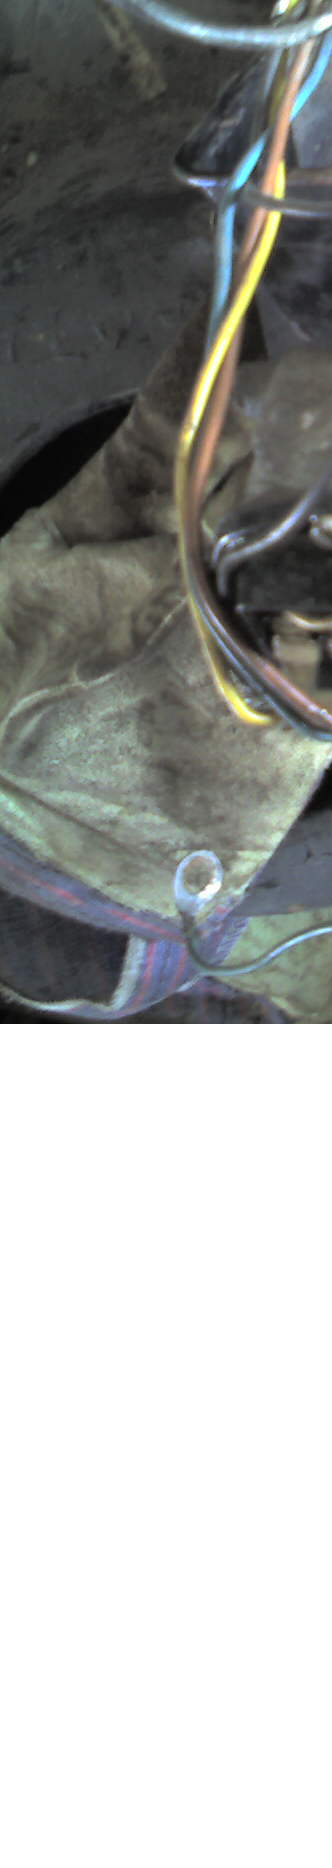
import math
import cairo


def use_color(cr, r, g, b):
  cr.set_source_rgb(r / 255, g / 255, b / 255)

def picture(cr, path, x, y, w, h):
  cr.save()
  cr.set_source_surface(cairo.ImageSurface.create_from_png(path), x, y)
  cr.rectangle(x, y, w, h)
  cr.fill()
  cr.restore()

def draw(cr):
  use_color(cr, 255, 255, 255)
  cr.paint()
  picture(cr, "img_01.png", 0, 0, 332, 1024)


surface = cairo.ImageSurface(cairo.FORMAT_RGB24, 332, 1868)
cr = cairo.Context(surface)
options = cairo.FontOptions()
options.set_hint_metrics(cairo.HINT_METRICS_OFF)
options.set_hint_style(cairo.HINT_STYLE_NONE)
cr.set_font_options(options)
cr.set_miter_limit(4)
draw(cr)
surface.write_to_png("out.png")
